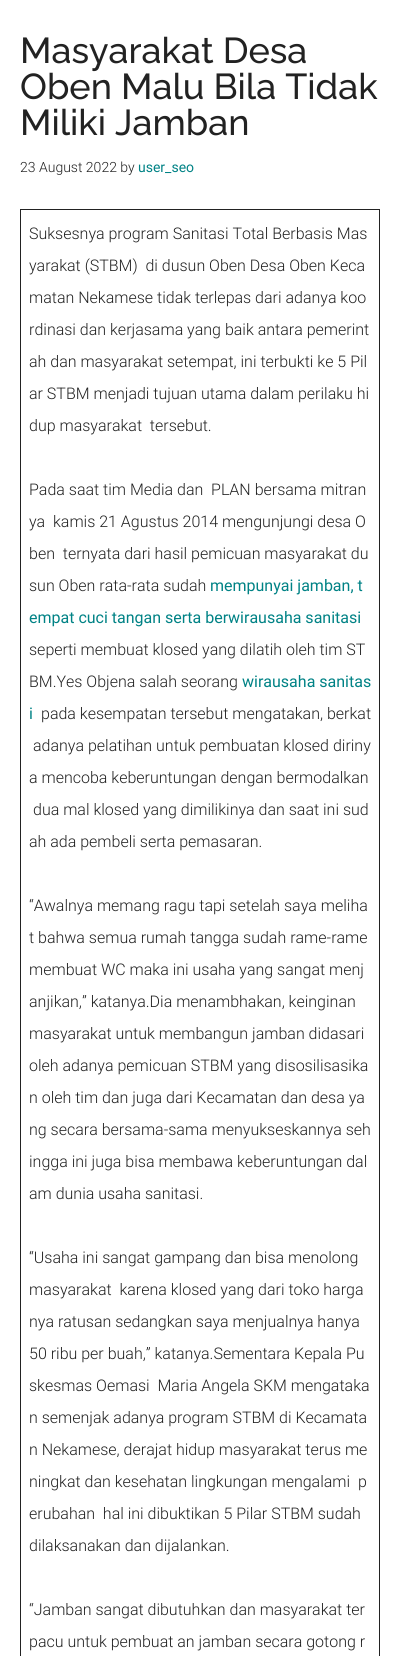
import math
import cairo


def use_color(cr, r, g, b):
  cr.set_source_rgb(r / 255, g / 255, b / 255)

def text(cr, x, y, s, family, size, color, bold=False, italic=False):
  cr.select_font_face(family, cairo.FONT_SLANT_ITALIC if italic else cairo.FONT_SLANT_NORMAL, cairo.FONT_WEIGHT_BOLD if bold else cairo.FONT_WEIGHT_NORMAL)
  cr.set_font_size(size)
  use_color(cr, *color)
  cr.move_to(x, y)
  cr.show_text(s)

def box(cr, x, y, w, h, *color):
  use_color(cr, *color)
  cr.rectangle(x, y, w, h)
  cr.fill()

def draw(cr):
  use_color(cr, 255, 255, 255)
  cr.paint()
  box(cr, 20, 209, 360, 1, 34, 34, 34)
  box(cr, 379, 209, 1, 1447, 34, 34, 34)
  box(cr, 20, 209, 1, 1447, 34, 34, 34)
  text(cr, 20, 63, "Masyarakat Desa", "Raleway Medium", 36, (34, 34, 34))
  text(cr, 20, 99, "Oben Malu Bila Tidak", "Raleway Medium", 36, (34, 34, 34))
  text(cr, 20, 135, "Miliki Jamban", "Raleway Medium", 36, (34, 34, 34))
  text(cr, 20, 172, "23 August 2022 by", "Roboto Light", 14, (34, 34, 34))
  text(cr, 138, 172, "user_seo", "Roboto", 14, (0, 130, 133))
  text(cr, 29, 239, "Suksesnya program Sanitasi Total Berbasis Mas", "Roboto Light", 16, (34, 34, 34))
  text(cr, 29, 271, "yarakat (STBM)  di dusun Oben Desa Oben Keca", "Roboto Light", 16, (34, 34, 34))
  text(cr, 29, 303, "matan Nekamese tidak terlepas dari adanya koo", "Roboto Light", 16, (34, 34, 34))
  text(cr, 29, 335, "rdinasi dan kerjasama yang baik antara pemerint", "Roboto Light", 16, (34, 34, 34))
  text(cr, 29, 367, "ah dan masyarakat setempat, ini terbukti ke 5 Pil", "Roboto Light", 16, (34, 34, 34))
  text(cr, 29, 399, "ar STBM menjadi tujuan utama dalam perilaku hi", "Roboto Light", 16, (34, 34, 34))
  text(cr, 29, 431, "dup masyarakat  tersebut.", "Roboto Light", 16, (34, 34, 34))
  text(cr, 29, 495, "Pada saat tim Media dan  PLAN bersama mitran", "Roboto Light", 16, (34, 34, 34))
  text(cr, 29, 527, "ya  kamis 21 Agustus 2014 mengunjungi desa O", "Roboto Light", 16, (34, 34, 34))
  text(cr, 29, 559, "ben  ternyata dari hasil pemicuan masyarakat du", "Roboto Light", 16, (34, 34, 34))
  text(cr, 29, 591, "sun Oben rata-rata sudah", "Roboto Light", 16, (34, 34, 34))
  text(cr, 210, 591, "mempunyai jamban, t", "Roboto", 16, (0, 130, 133))
  text(cr, 29, 623, "empat cuci tangan serta berwirausaha sanitasi", "Roboto", 16, (0, 130, 133))
  text(cr, 29, 655, "seperti membuat klosed yang dilatih oleh tim ST", "Roboto Light", 16, (34, 34, 34))
  text(cr, 29, 687, "BM.Yes Objena salah seorang", "Roboto Light", 16, (34, 34, 34))
  text(cr, 242, 687, "wirausaha sanitas", "Roboto", 16, (0, 130, 133))
  text(cr, 29, 719, "i", "Roboto", 16, (0, 130, 133))
  text(cr, 41, 719, "pada kesempatan tersebut mengatakan, berkat", "Roboto Light", 16, (34, 34, 34))
  text(cr, 33, 751, "adanya pelatihan untuk pembuatan klosed diriny", "Roboto Light", 16, (34, 34, 34))
  text(cr, 29, 783, "a mencoba keberuntungan dengan bermodalkan", "Roboto Light", 16, (34, 34, 34))
  text(cr, 33, 815, "dua mal klosed yang dimilikinya dan saat ini sud", "Roboto Light", 16, (34, 34, 34))
  text(cr, 29, 847, "ah ada pembeli serta pemasaran.", "Roboto Light", 16, (34, 34, 34))
  text(cr, 29, 911, "“Awalnya memang ragu tapi setelah saya meliha", "Roboto Light", 16, (34, 34, 34))
  text(cr, 29, 943, "t bahwa semua rumah tangga sudah rame-rame", "Roboto Light", 16, (34, 34, 34))
  text(cr, 29, 975, "membuat WC maka ini usaha yang sangat menj", "Roboto Light", 16, (34, 34, 34))
  text(cr, 29, 1007, "anjikan,” katanya.Dia menambhakan, keinginan", "Roboto Light", 16, (34, 34, 34))
  text(cr, 29, 1039, "masyarakat untuk membangun jamban didasari", "Roboto Light", 16, (34, 34, 34))
  text(cr, 29, 1071, "oleh adanya pemicuan STBM yang disosilisasika", "Roboto Light", 16, (34, 34, 34))
  text(cr, 29, 1103, "n oleh tim dan juga dari Kecamatan dan desa ya", "Roboto Light", 16, (34, 34, 34))
  text(cr, 29, 1135, "ng secara bersama-sama menyukseskannya seh", "Roboto Light", 16, (34, 34, 34))
  text(cr, 29, 1167, "ingga ini juga bisa membawa keberuntungan dal", "Roboto Light", 16, (34, 34, 34))
  text(cr, 29, 1199, "am dunia usaha sanitasi.", "Roboto Light", 16, (34, 34, 34))
  text(cr, 29, 1263, "“Usaha ini sangat gampang dan bisa menolong", "Roboto Light", 16, (34, 34, 34))
  text(cr, 29, 1295, "masyarakat  karena klosed yang dari toko harga", "Roboto Light", 16, (34, 34, 34))
  text(cr, 29, 1327, "nya ratusan sedangkan saya menjualnya hanya", "Roboto Light", 16, (34, 34, 34))
  text(cr, 29, 1359, "50 ribu per buah,” katanya.Sementara Kepala Pu", "Roboto Light", 16, (34, 34, 34))
  text(cr, 29, 1391, "skesmas Oemasi  Maria Angela SKM mengataka", "Roboto Light", 16, (34, 34, 34))
  text(cr, 29, 1423, "n semenjak adanya program STBM di Kecamata", "Roboto Light", 16, (34, 34, 34))
  text(cr, 29, 1455, "n Nekamese, derajat hidup masyarakat terus me", "Roboto Light", 16, (34, 34, 34))
  text(cr, 29, 1487, "ningkat dan kesehatan lingkungan mengalami  p", "Roboto Light", 16, (34, 34, 34))
  text(cr, 29, 1519, "erubahan  hal ini dibuktikan 5 Pilar STBM sudah", "Roboto Light", 16, (34, 34, 34))
  text(cr, 29, 1551, "dilaksanakan dan dijalankan.", "Roboto Light", 16, (34, 34, 34))
  text(cr, 29, 1615, "“Jamban sangat dibutuhkan dan masyarakat ter", "Roboto Light", 16, (34, 34, 34))
  text(cr, 29, 1647, "pacu untuk pembuat an jamban secara gotong r", "Roboto Light", 16, (34, 34, 34))


surface = cairo.ImageSurface(cairo.FORMAT_RGB24, 400, 1656)
cr = cairo.Context(surface)
options = cairo.FontOptions()
options.set_hint_metrics(cairo.HINT_METRICS_OFF)
options.set_hint_style(cairo.HINT_STYLE_NONE)
cr.set_font_options(options)
cr.set_miter_limit(4)
draw(cr)
surface.write_to_png("out.png")
